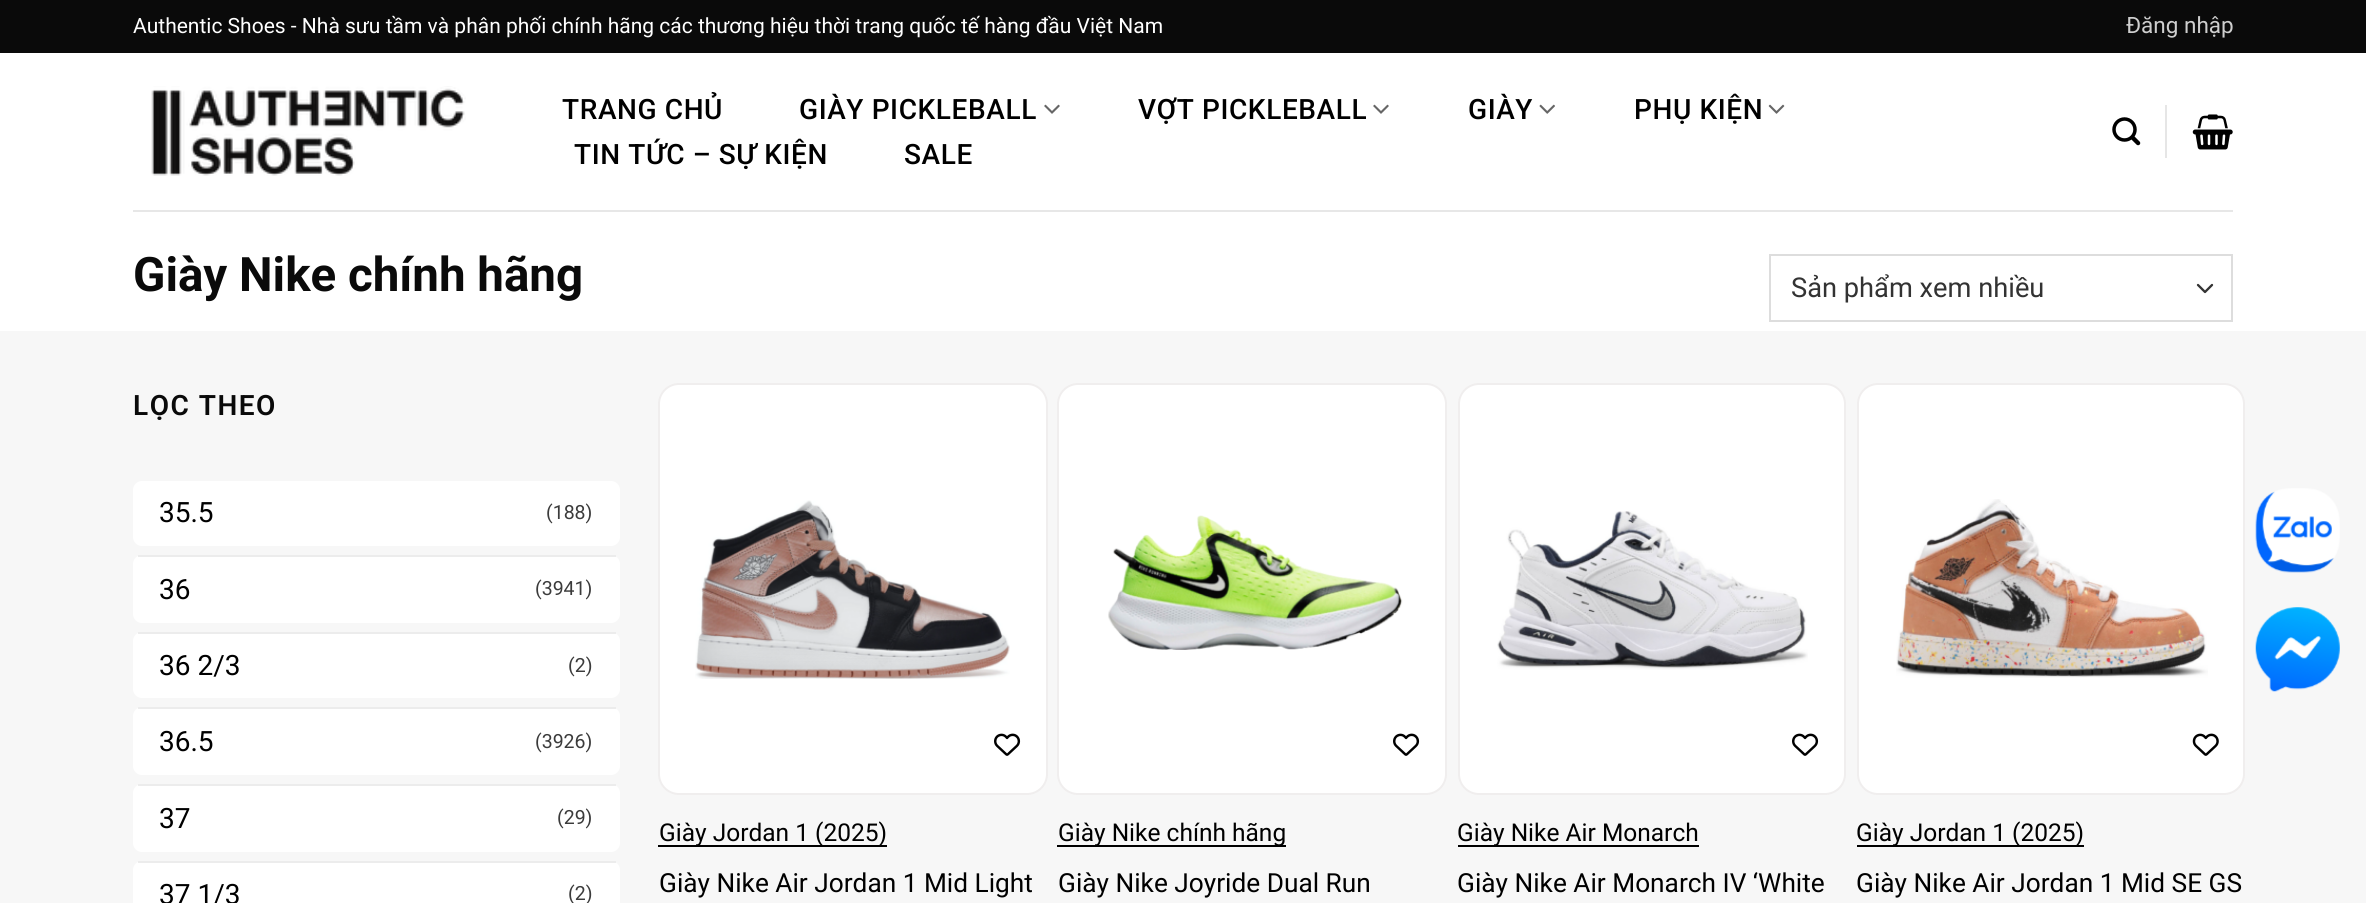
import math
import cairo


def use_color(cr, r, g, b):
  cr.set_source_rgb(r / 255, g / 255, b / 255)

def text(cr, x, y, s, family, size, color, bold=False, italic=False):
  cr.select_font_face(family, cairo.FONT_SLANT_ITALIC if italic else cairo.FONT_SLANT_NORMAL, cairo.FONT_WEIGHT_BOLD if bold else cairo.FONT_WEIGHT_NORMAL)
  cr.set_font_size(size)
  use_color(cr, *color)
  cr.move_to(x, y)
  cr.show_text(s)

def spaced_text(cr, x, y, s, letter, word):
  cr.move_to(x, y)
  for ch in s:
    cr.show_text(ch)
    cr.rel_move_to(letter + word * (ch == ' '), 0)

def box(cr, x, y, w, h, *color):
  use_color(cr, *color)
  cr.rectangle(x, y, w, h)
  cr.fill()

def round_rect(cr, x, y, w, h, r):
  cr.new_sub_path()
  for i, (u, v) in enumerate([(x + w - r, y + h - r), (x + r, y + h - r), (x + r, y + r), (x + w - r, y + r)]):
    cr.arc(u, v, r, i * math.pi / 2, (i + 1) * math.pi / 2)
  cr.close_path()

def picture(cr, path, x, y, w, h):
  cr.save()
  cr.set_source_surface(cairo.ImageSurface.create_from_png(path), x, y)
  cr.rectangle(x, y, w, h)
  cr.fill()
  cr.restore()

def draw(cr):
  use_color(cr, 255, 255, 255)
  cr.paint()
  box(cr, 0, 0, 2366, 53, 10, 10, 10)
  picture(cr, "img_01.png", 151, 86, 315, 90)
  picture(cr, "img_02.png", 1044, 104, 16, 10)
  picture(cr, "img_02.png", 1373, 104, 16, 10)
  picture(cr, "img_03.png", 1539, 104, 16, 10)
  picture(cr, "img_04.png", 1768, 104, 17, 10)
  picture(cr, "img_05.png", 2112, 117, 29, 29)
  box(cr, 2165, 105, 2, 53, 230, 230, 230)
  picture(cr, "img_06.png", 2192, 114, 41, 36)
  box(cr, 133, 210, 2100, 2, 231, 231, 231)
  cr.new_path()
  cr.move_to(2198, 285)
  cr.line_to(2205, 292)
  cr.line_to(2212, 285)
  use_color(cr, 51, 51, 51)
  cr.set_line_width(2.3)
  cr.set_line_cap(cairo.LINE_CAP_ROUND)
  cr.set_line_join(cairo.LINE_JOIN_ROUND)
  cr.stroke()
  cr.rectangle(1770, 255, 462, 66)
  use_color(cr, 221, 221, 221)
  cr.set_line_width(2)
  cr.set_line_cap(cairo.LINE_CAP_BUTT)
  cr.set_line_join(cairo.LINE_JOIN_MITER)
  cr.stroke()
  box(cr, 0, 331, 2366, 572, 247, 247, 247)
  use_color(cr, 255, 255, 255)
  round_rect(cr, 133, 481, 487, 65, 9)
  cr.fill()
  round_rect(cr, 133, 555, 487, 68, 9)
  cr.fill()
  box(cr, 138, 555, 478, 2, 236, 236, 236)
  use_color(cr, 255, 255, 255)
  round_rect(cr, 133, 632, 487, 66, 9)
  cr.fill()
  box(cr, 138, 632, 478, 2, 236, 236, 236)
  use_color(cr, 255, 255, 255)
  round_rect(cr, 133, 707, 487, 68, 9)
  cr.fill()
  box(cr, 138, 707, 478, 2, 236, 236, 236)
  use_color(cr, 255, 255, 255)
  round_rect(cr, 133, 784, 487, 68, 9)
  cr.fill()
  box(cr, 138, 784, 478, 2, 236, 236, 236)
  use_color(cr, 255, 255, 255)
  round_rect(cr, 133, 861, 487, 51, 9)
  cr.fill()
  box(cr, 138, 861, 478, 2, 236, 236, 236)
  use_color(cr, 255, 255, 255)
  round_rect(cr, 659, 384, 388, 410, 20)
  cr.fill_preserve()
  use_color(cr, 240, 238, 238)
  cr.stroke()
  picture(cr, "img_07.png", 695, 500, 315, 179)
  picture(cr, "img_08.png", 994, 733, 27, 23)
  box(cr, 658, 845, 229, 2, 0, 0, 0)
  use_color(cr, 255, 255, 255)
  round_rect(cr, 1058, 384, 388, 410, 20)
  cr.fill_preserve()
  use_color(cr, 240, 238, 238)
  cr.stroke()
  picture(cr, "img_09.png", 1108, 515, 295, 135)
  picture(cr, "img_08.png", 1393, 733, 27, 23)
  box(cr, 1057, 845, 229, 2, 0, 0, 0)
  use_color(cr, 255, 255, 255)
  round_rect(cr, 1459, 384, 386, 410, 20)
  cr.fill_preserve()
  use_color(cr, 240, 238, 238)
  cr.stroke()
  picture(cr, "img_10.png", 1497, 511, 311, 159)
  picture(cr, "img_08.png", 1792, 733, 27, 23)
  box(cr, 1458, 845, 241, 2, 0, 0, 0)
  use_color(cr, 255, 255, 255)
  round_rect(cr, 1858, 384, 386, 410, 20)
  cr.fill_preserve()
  use_color(cr, 240, 238, 238)
  cr.stroke()
  picture(cr, "img_11.png", 1896, 499, 312, 179)
  picture(cr, "img_12.png", 2192, 733, 27, 23)
  box(cr, 1857, 845, 227, 2, 0, 0, 0)
  picture(cr, "img_13.png", 2255, 488, 85, 85)
  picture(cr, "img_14.png", 2255, 607, 85, 85)
  text(cr, 133, 33, "Authentic Shoes - Nhà sưu tầm và phân phối chính hãng các thương hiệu thời trang quốc tế hàng đầu Việt Nam", "Roboto", 21, (255, 255, 255))
  text(cr, 2126, 33, "Đăng nhập", "Roboto", 22.5, (206, 206, 206))
  cr.select_font_face("Roboto Medium")
  cr.set_font_size(28)
  use_color(cr, 0, 0, 0)
  spaced_text(cr, 562, 119, "TRANG CHỦ", 0.6, 0)
  spaced_text(cr, 799, 119, "GIÀY PICKLEBALL", 0.6, 0)
  spaced_text(cr, 1138, 119, "VỢT PICKLEBALL", 0.6, 0)
  spaced_text(cr, 1468, 119, "GIÀY", 0.6, 0)
  spaced_text(cr, 1634, 119, "PHỤ KIỆN", 0.6, 0)
  spaced_text(cr, 574, 164, "TIN TỨC – SỰ KIỆN", 0.6, 0)
  spaced_text(cr, 904, 164, "SALE", 0.6, 0)
  text(cr, 133, 291, "Giày Nike chính hãng", "Roboto", 47.5, (10, 10, 10), bold=True)
  text(cr, 1791, 297, "Sản phẩm xem nhiều", "Roboto", 27.25, (51, 51, 51))
  cr.select_font_face("Roboto SemiBold")
  cr.set_font_size(28)
  use_color(cr, 10, 10, 10)
  spaced_text(cr, 133, 415, "LỌC THEO", 1.5, 0)
  text(cr, 159, 522, "35.5", "Roboto", 28, (0, 0, 0))
  text(cr, 546, 519, "(188)", "Roboto", 19.5, (59, 59, 59))
  text(cr, 159, 599, "36", "Roboto", 28, (0, 0, 0))
  text(cr, 535, 595, "(3941)", "Roboto", 19.5, (59, 59, 59))
  text(cr, 159, 675, "36 2/3", "Roboto", 28, (0, 0, 0))
  text(cr, 568, 672, "(2)", "Roboto", 19.5, (59, 59, 59))
  text(cr, 159, 751, "36.5", "Roboto", 28, (0, 0, 0))
  text(cr, 535, 748, "(3926)", "Roboto", 19.5, (59, 59, 59))
  text(cr, 159, 828, "37", "Roboto", 28, (0, 0, 0))
  text(cr, 557, 824, "(29)", "Roboto", 19.5, (59, 59, 59))
  text(cr, 159, 904, "37 1/3", "Roboto", 28, (0, 0, 0))
  text(cr, 568, 900, "(2)", "Roboto", 19.5, (59, 59, 59))
  text(cr, 659, 841, "Giày Jordan 1 (2025)", "Roboto", 24.5, (0, 0, 0))
  text(cr, 659, 892, "Giày Nike Air Jordan 1 Mid Light", "Roboto", 26.25, (0, 0, 0))
  text(cr, 1058, 841, "Giày Nike chính hãng", "Roboto", 24.5, (0, 0, 0))
  text(cr, 1058, 892, "Giày Nike Joyride Dual Run", "Roboto", 26.25, (0, 0, 0))
  text(cr, 1457, 841, "Giày Nike Air Monarch", "Roboto", 24.5, (0, 0, 0))
  text(cr, 1457, 892, "Giày Nike Air Monarch IV ‘White", "Roboto", 26.25, (0, 0, 0))
  text(cr, 1856, 841, "Giày Jordan 1 (2025)", "Roboto", 24.5, (0, 0, 0))
  text(cr, 1856, 892, "Giày Nike Air Jordan 1 Mid SE GS", "Roboto", 26.25, (0, 0, 0))


surface = cairo.ImageSurface(cairo.FORMAT_RGB24, 2366, 903)
cr = cairo.Context(surface)
options = cairo.FontOptions()
options.set_hint_metrics(cairo.HINT_METRICS_OFF)
options.set_hint_style(cairo.HINT_STYLE_NONE)
cr.set_font_options(options)
cr.set_miter_limit(4)
draw(cr)
surface.write_to_png("out.png")
